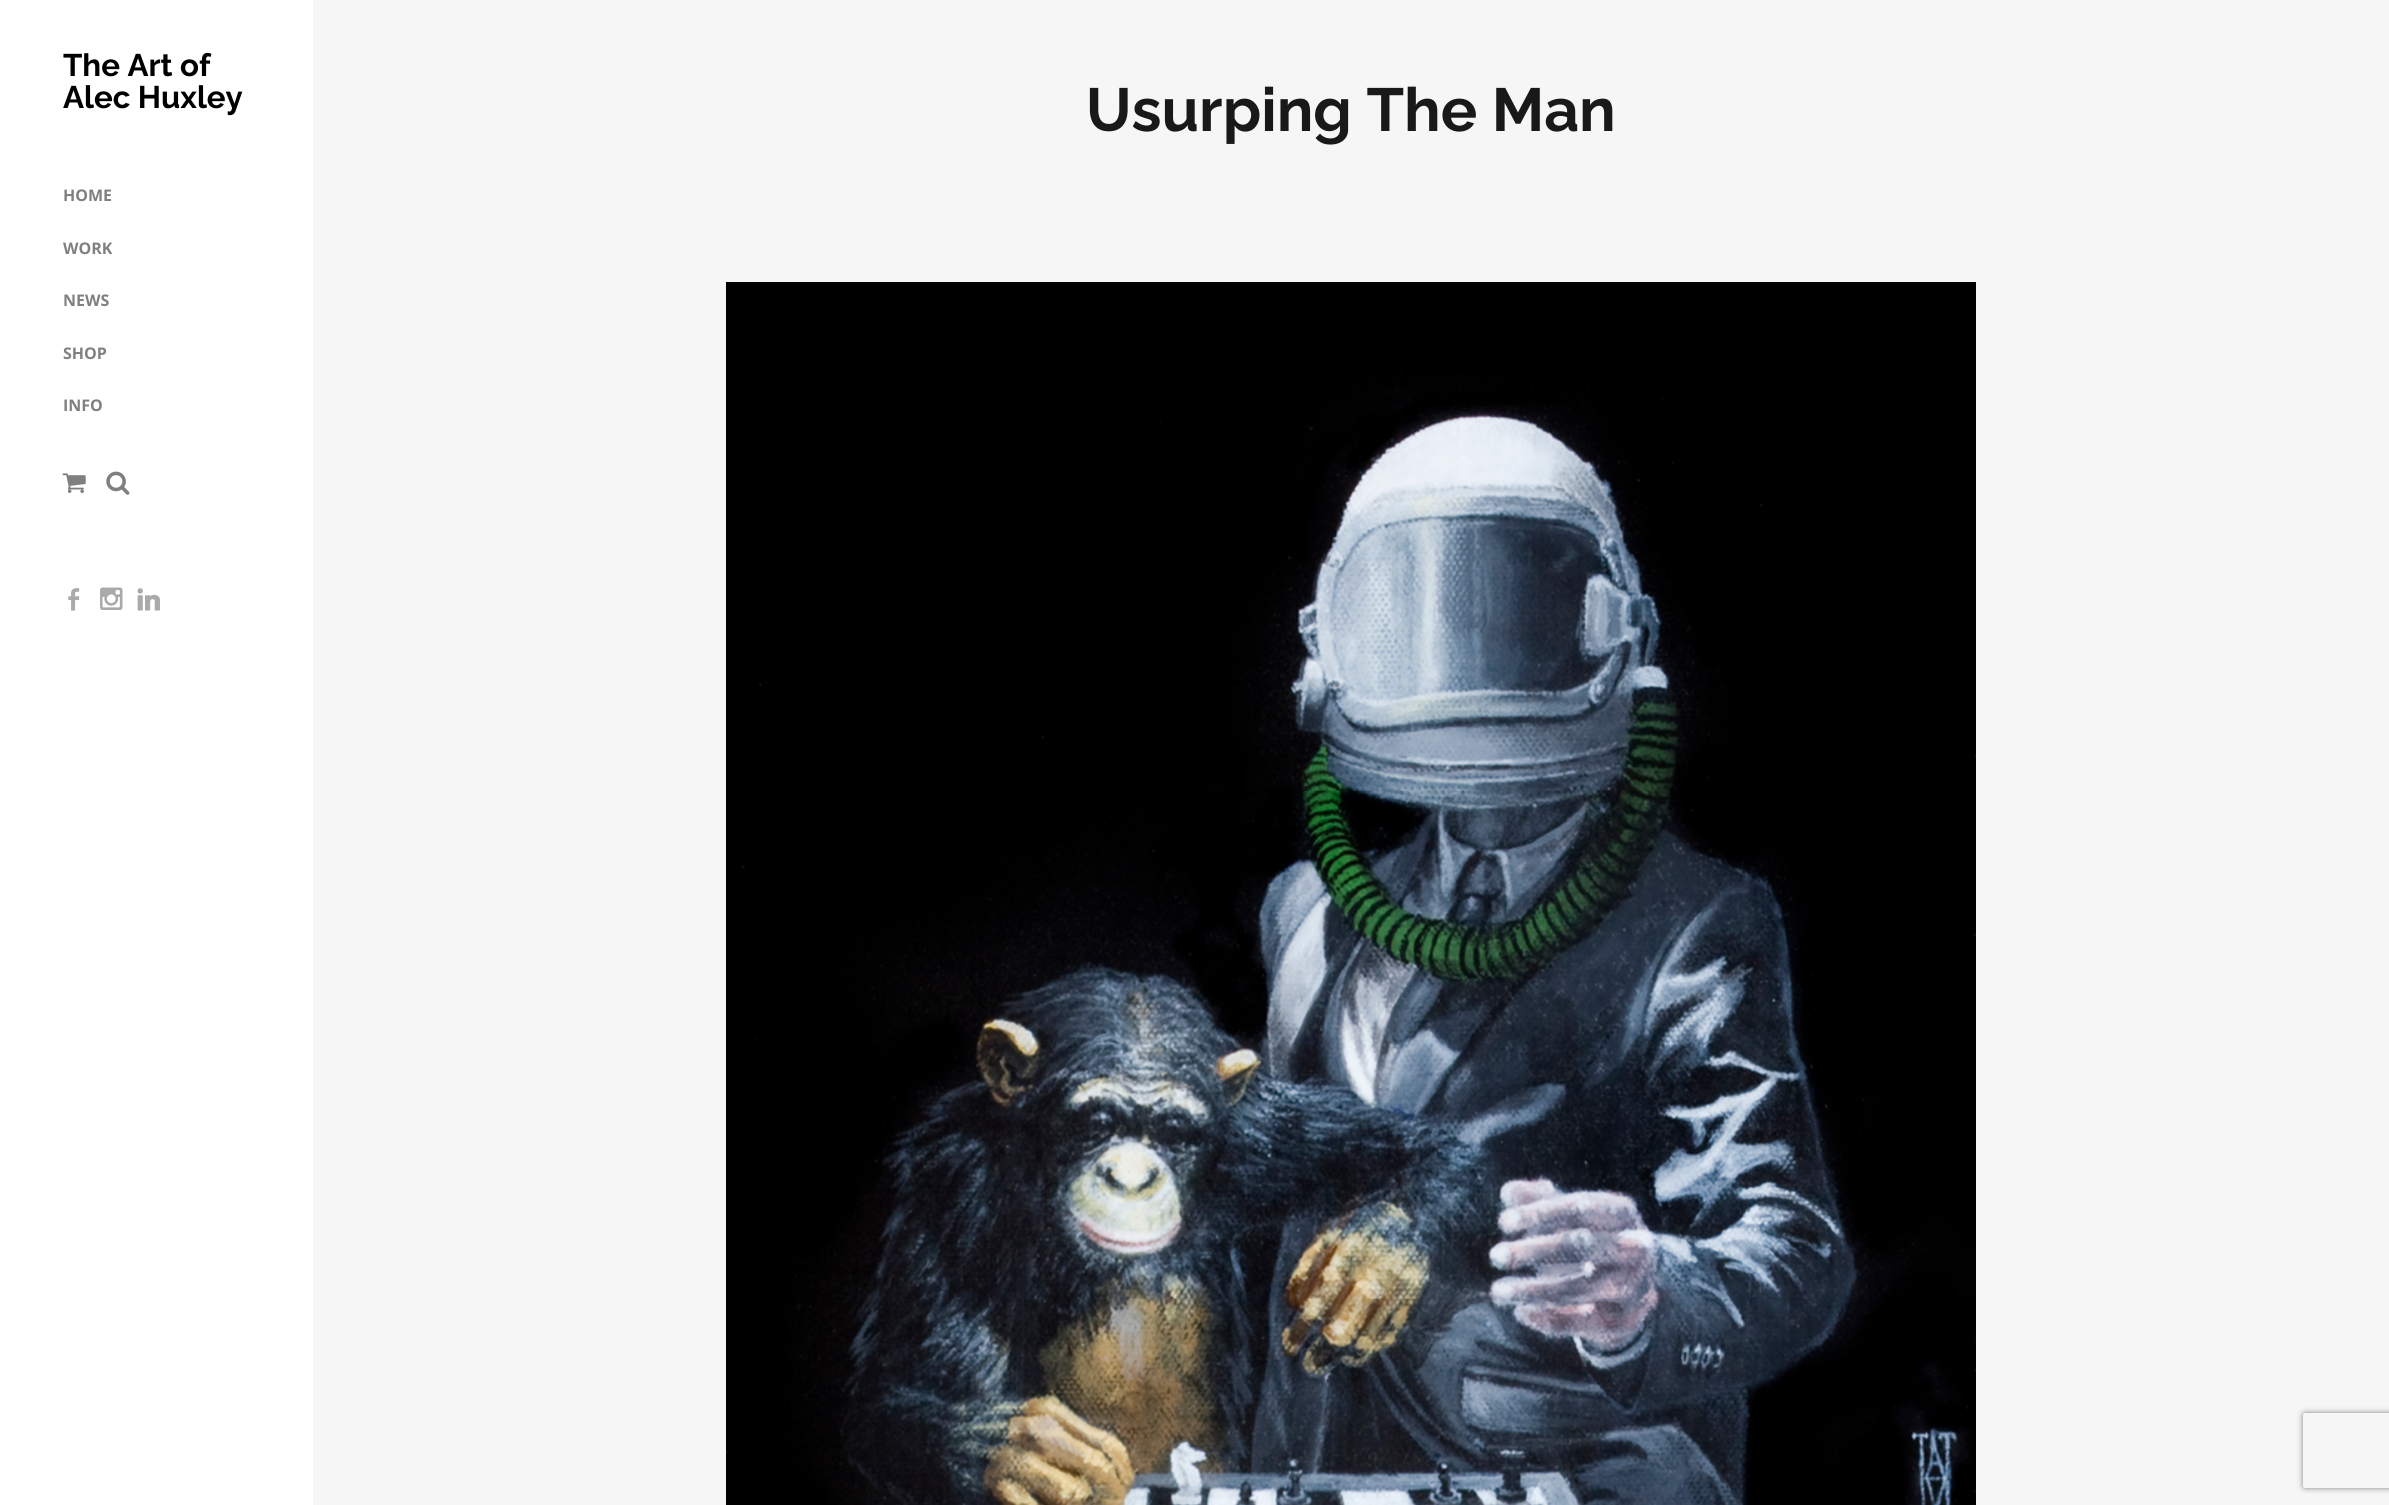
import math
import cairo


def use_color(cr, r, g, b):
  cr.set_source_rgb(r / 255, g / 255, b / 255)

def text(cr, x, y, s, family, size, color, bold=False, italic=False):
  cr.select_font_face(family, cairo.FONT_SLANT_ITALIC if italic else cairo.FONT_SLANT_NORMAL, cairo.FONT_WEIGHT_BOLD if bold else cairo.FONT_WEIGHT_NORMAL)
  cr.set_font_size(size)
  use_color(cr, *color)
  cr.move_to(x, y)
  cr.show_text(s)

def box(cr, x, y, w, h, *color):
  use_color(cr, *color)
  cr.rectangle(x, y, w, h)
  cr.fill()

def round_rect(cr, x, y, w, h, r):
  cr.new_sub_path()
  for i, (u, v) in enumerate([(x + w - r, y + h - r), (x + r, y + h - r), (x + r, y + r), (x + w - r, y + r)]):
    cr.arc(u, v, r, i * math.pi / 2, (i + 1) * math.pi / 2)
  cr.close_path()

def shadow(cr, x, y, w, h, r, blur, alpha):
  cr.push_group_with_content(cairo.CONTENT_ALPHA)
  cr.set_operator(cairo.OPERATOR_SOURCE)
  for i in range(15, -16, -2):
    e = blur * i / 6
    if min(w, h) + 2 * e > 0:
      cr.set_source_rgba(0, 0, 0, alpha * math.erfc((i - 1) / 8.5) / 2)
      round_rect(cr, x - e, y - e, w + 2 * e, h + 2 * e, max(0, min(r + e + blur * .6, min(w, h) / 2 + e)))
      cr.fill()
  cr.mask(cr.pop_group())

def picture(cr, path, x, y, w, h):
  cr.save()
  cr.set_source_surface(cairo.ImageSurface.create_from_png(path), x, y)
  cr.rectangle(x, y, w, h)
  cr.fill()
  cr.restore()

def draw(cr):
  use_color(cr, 246, 246, 246)
  cr.paint()
  box(cr, 0, 0, 313, 1505, 255, 255, 255)
  picture(cr, "img_01.png", 62, 473, 24, 20)
  picture(cr, "img_02.png", 106, 471, 24, 24)
  picture(cr, "img_03.png", 68, 588, 12, 23)
  picture(cr, "img_04.png", 100, 587, 23, 23)
  picture(cr, "img_05.png", 137, 588, 23, 23)
  picture(cr, "img_06.png", 726, 282, 1250, 1223)
  cr.save()
  cr.set_fill_rule(cairo.FILL_RULE_EVEN_ODD)
  cr.new_path()
  cr.move_to(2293, 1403)
  cr.line_to(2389, 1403)
  cr.line_to(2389, 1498)
  cr.line_to(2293, 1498)
  cr.close_path()
  cr.move_to(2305.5, 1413)
  cr.line_to(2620.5, 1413)
  cr.curve_to(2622, 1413, 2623, 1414, 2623, 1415.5)
  cr.line_to(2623, 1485.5)
  cr.curve_to(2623, 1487, 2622, 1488, 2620.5, 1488)
  cr.line_to(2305.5, 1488)
  cr.curve_to(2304, 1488, 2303, 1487, 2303, 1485.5)
  cr.line_to(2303, 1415.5)
  cr.curve_to(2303, 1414, 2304, 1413, 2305.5, 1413)
  cr.close_path()
  cr.clip()
  use_color(cr, 128, 128, 128)
  shadow(cr, 2303, 1413, 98, 75, 2.5, 3, 1)
  cr.restore()
  text(cr, 63, 76, "The Art of", "Raleway", 31.25, (0, 0, 0), bold=True)
  text(cr, 63, 108, "Alec Huxley", "Raleway", 31.25, (0, 0, 0), bold=True)
  text(cr, 63, 201, "HOME", "Open Sans", 16, (128, 128, 128), bold=True)
  text(cr, 63, 254, "WORK", "Open Sans", 16, (128, 128, 128), bold=True)
  text(cr, 63, 306, "NEWS", "Open Sans", 16, (128, 128, 128), bold=True)
  text(cr, 63, 359, "SHOP", "Open Sans", 16, (128, 128, 128), bold=True)
  text(cr, 63, 411, "INFO", "Open Sans", 16, (128, 128, 128), bold=True)
  text(cr, 1086, 131, "Usurping The Man", "Raleway", 60.75, (25, 25, 25), bold=True)


surface = cairo.ImageSurface(cairo.FORMAT_RGB24, 2389, 1505)
cr = cairo.Context(surface)
options = cairo.FontOptions()
options.set_hint_metrics(cairo.HINT_METRICS_OFF)
options.set_hint_style(cairo.HINT_STYLE_NONE)
cr.set_font_options(options)
cr.set_miter_limit(4)
draw(cr)
surface.write_to_png("out.png")
